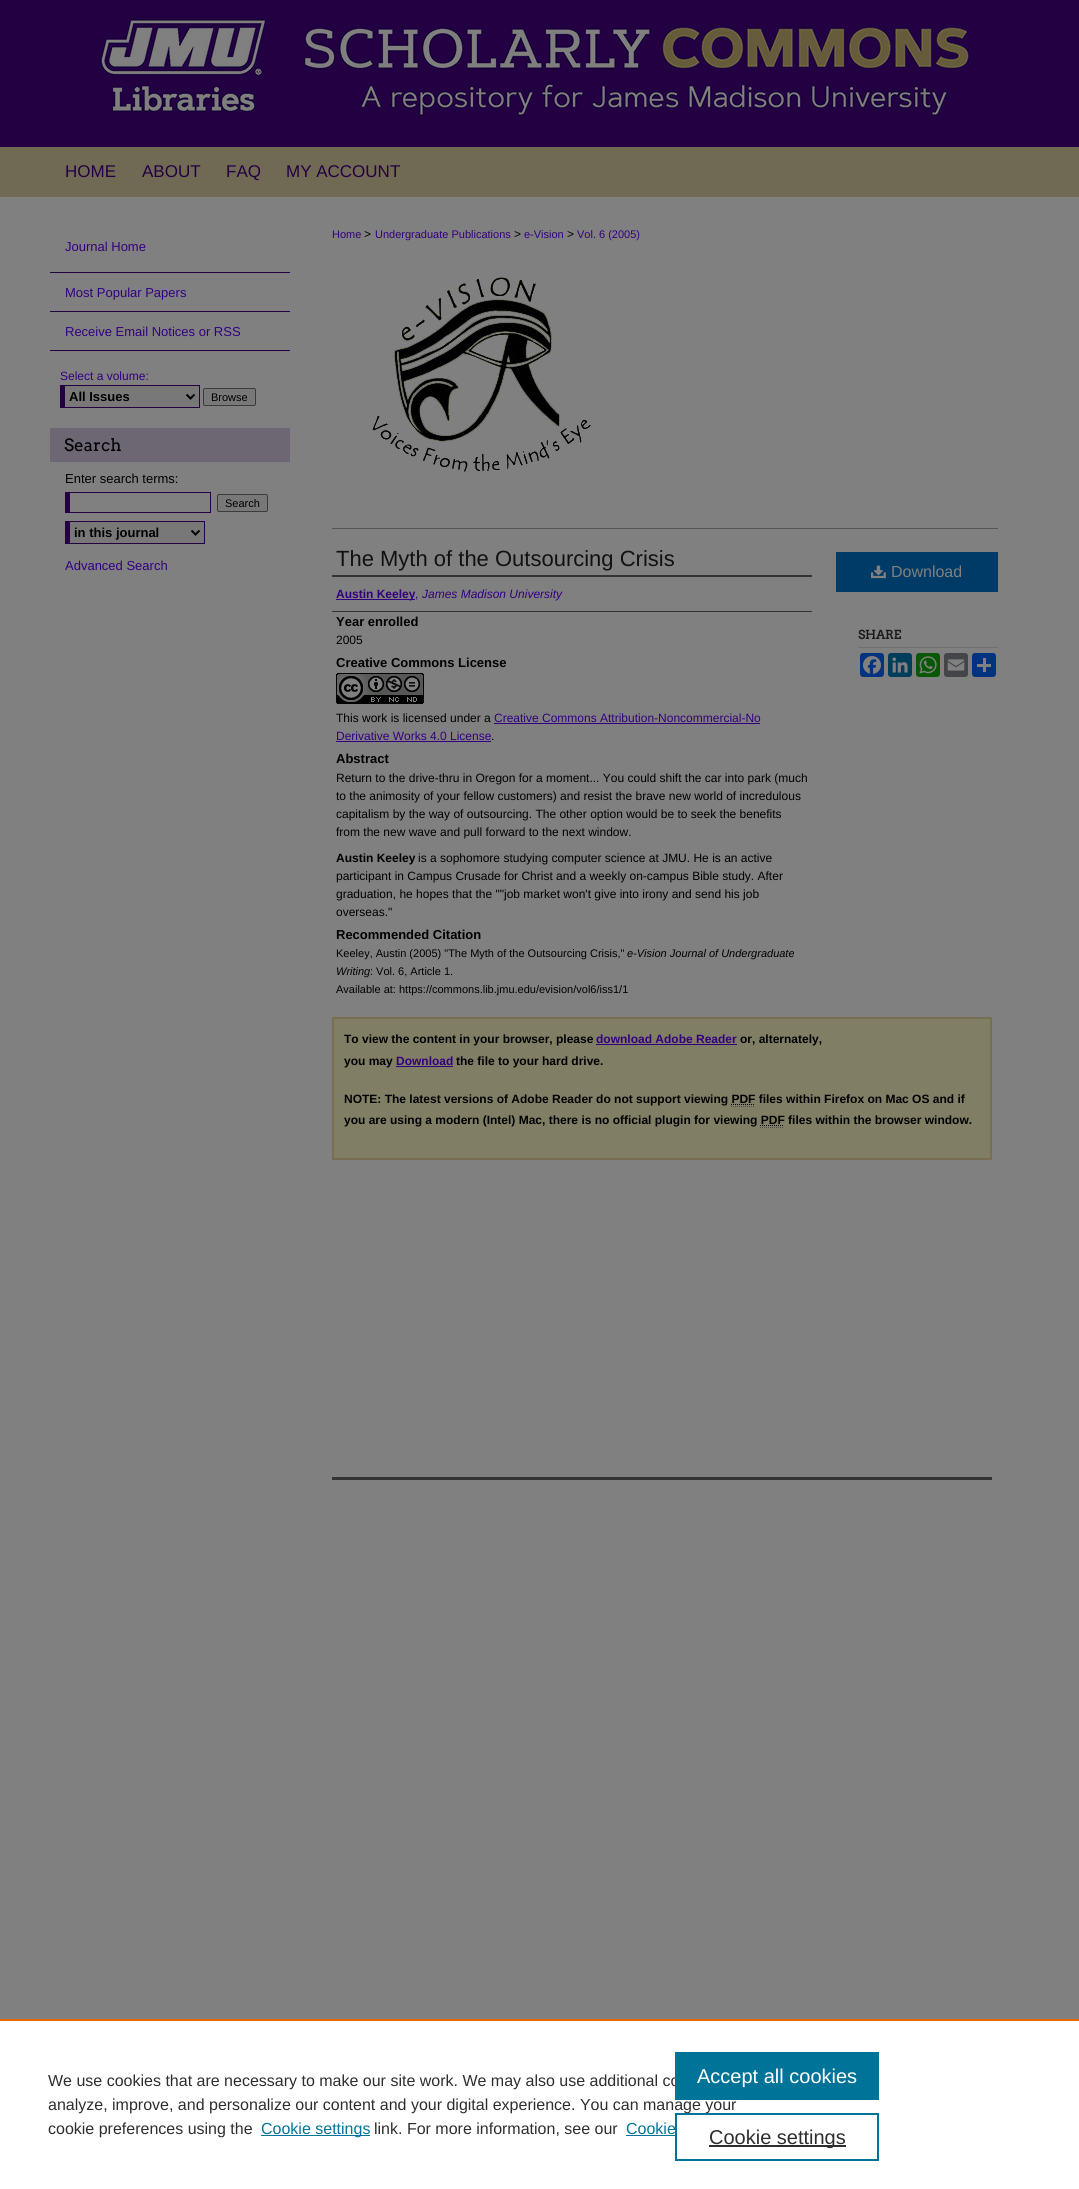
import math
import cairo


def use_color(cr, r, g, b):
  cr.set_source_rgb(r / 255, g / 255, b / 255)

def text(cr, x, y, s, family, size, color, bold=False, italic=False):
  cr.select_font_face(family, cairo.FONT_SLANT_ITALIC if italic else cairo.FONT_SLANT_NORMAL, cairo.FONT_WEIGHT_BOLD if bold else cairo.FONT_WEIGHT_NORMAL)
  cr.set_font_size(size)
  use_color(cr, *color)
  cr.move_to(x, y)
  cr.show_text(s)

def box(cr, x, y, w, h, *color):
  use_color(cr, *color)
  cr.rectangle(x, y, w, h)
  cr.fill()

def round_rect(cr, x, y, w, h, r):
  cr.new_sub_path()
  for i, (u, v) in enumerate([(x + w - r, y + h - r), (x + r, y + h - r), (x + r, y + r), (x + w - r, y + r)]):
    cr.arc(u, v, r, i * math.pi / 2, (i + 1) * math.pi / 2)
  cr.close_path()

def picture(cr, path, x, y, w, h):
  cr.save()
  cr.set_source_surface(cairo.ImageSurface.create_from_png(path), x, y)
  cr.rectangle(x, y, w, h)
  cr.fill()
  cr.restore()

def draw(cr):
  use_color(cr, 128, 128, 128)
  cr.paint()
  picture(cr, "img_01.png", 0, 0, 1079, 197)
  picture(cr, "img_02.png", 99, 16, 873, 100)
  box(cr, 50, 272, 240, 1, 35, 0, 66)
  box(cr, 50, 311, 240, 1, 35, 0, 66)
  box(cr, 50, 350, 240, 1, 35, 0, 66)
  box(cr, 65, 386, 134, 21, 120, 120, 120)
  box(cr, 60, 385, 140, 1, 35, 1, 66)
  box(cr, 199, 385, 1, 23, 35, 1, 66)
  box(cr, 60, 407, 140, 1, 35, 1, 66)
  box(cr, 60, 385, 5, 23, 35, 1, 66)
  cr.new_path()
  cr.move_to(186.5, 394.5)
  cr.line_to(190.5, 398.5)
  cr.line_to(194.5, 394.5)
  use_color(cr, 0, 0, 0)
  cr.stroke()
  use_color(cr, 120, 120, 120)
  round_rect(cr, 203.5, 388.5, 52, 17, 1.5)
  cr.fill_preserve()
  use_color(cr, 59, 59, 59)
  cr.set_line_width(1)
  cr.stroke()
  box(cr, 50, 428, 240, 34, 109, 102, 115)
  box(cr, 65, 492, 146, 1, 35, 1, 66)
  box(cr, 210, 492, 1, 21, 35, 1, 66)
  box(cr, 65, 512, 146, 1, 35, 1, 66)
  box(cr, 65, 492, 5, 21, 35, 1, 66)
  use_color(cr, 120, 120, 120)
  round_rect(cr, 217.5, 494.5, 50, 17, 1.5)
  cr.fill_preserve()
  use_color(cr, 59, 59, 59)
  cr.stroke()
  box(cr, 70, 522, 134, 21, 120, 120, 120)
  box(cr, 65, 521, 140, 1, 35, 1, 66)
  box(cr, 204, 521, 1, 23, 35, 1, 66)
  box(cr, 65, 543, 140, 1, 35, 1, 66)
  box(cr, 65, 521, 5, 23, 35, 1, 66)
  cr.new_path()
  cr.move_to(191.5, 530.5)
  cr.line_to(195.5, 534.5)
  cr.line_to(199.5, 530.5)
  use_color(cr, 0, 0, 0)
  cr.set_line_width(2)
  cr.stroke()
  picture(cr, "img_03.png", 372, 277, 219, 195)
  box(cr, 332, 528, 666, 1, 85, 85, 85)
  box(cr, 332, 575, 480, 2, 51, 51, 51)
  box(cr, 332, 611, 480, 1, 51, 51, 51)
  box(cr, 336, 599, 79, 1, 51, 0, 128)
  picture(cr, "img_04.png", 336, 673, 88, 31)
  box(cr, 494, 723, 266, 1, 51, 0, 128)
  box(cr, 336, 741, 155, 1, 51, 0, 128)
  box(cr, 836, 552, 162, 40, 0, 58, 102)
  picture(cr, "img_05.png", 871, 565, 15, 14)
  box(cr, 858, 647, 140, 1, 111, 111, 111)
  use_color(cr, 4, 51, 128)
  round_rect(cr, 860, 653, 24, 24, 3)
  cr.fill()
  picture(cr, "img_06.png", 863, 656, 18, 18)
  use_color(cr, 0, 62, 91)
  round_rect(cr, 888, 653, 24, 24, 3)
  cr.fill()
  picture(cr, "img_07.png", 892, 657, 16, 16)
  use_color(cr, 9, 88, 5)
  round_rect(cr, 916, 653, 24, 24, 3)
  cr.fill()
  picture(cr, "img_08.png", 919, 656, 18, 18)
  use_color(cr, 68, 69, 72)
  round_rect(cr, 944, 653, 24, 24, 3)
  cr.fill()
  picture(cr, "img_09.png", 947, 659, 18, 12)
  use_color(cr, 1, 51, 128)
  round_rect(cr, 972, 653, 24, 24, 3)
  cr.fill()
  box(cr, 983, 658, 3, 14, 128, 128, 128)
  box(cr, 977, 664, 14, 3, 128, 128, 128)
  box(cr, 332, 1477, 660, 3, 51, 51, 51)
  use_color(cr, 128, 126, 101)
  cr.rectangle(333, 1018, 658, 141)
  cr.fill_preserve()
  use_color(cr, 120, 110, 81)
  cr.stroke()
  box(cr, 596, 1044, 141, 1, 51, 0, 128)
  box(cr, 396, 1066, 57, 1, 51, 0, 128)
  cr.new_path()
  cr.move_to(731, 1104.5)
  cr.line_to(755, 1104.5)
  use_color(cr, 0, 0, 0)
  cr.set_line_width(1)
  cr.set_dash([1, 1])
  cr.stroke()
  cr.new_path()
  cr.move_to(731, 1106.5)
  cr.line_to(755, 1106.5)
  use_color(cr, 77, 77, 77)
  cr.stroke()
  cr.new_path()
  cr.move_to(760, 1125.5)
  cr.line_to(784, 1125.5)
  use_color(cr, 0, 0, 0)
  cr.stroke()
  cr.new_path()
  cr.move_to(760, 1127.5)
  cr.line_to(784, 1127.5)
  use_color(cr, 77, 77, 77)
  cr.stroke()
  box(cr, 0, 2021, 1079, 168, 255, 255, 255)
  box(cr, 0, 2019, 1079, 2, 235, 101, 0)
  box(cr, 261, 2135, 109, 1, 0, 115, 152)
  box(cr, 626, 2135, 49, 1, 0, 115, 152)
  text(cr, 65, 177, "HOME", "Liberation Sans", 17, (35, 0, 66))
  text(cr, 142, 177, "ABOUT", "Liberation Sans", 17, (35, 0, 66))
  text(cr, 226, 177, "FAQ", "Liberation Sans", 17, (35, 0, 66))
  text(cr, 286, 177, "MY ACCOUNT", "Liberation Sans", 17, (35, 0, 66))
  text(cr, 65, 251, "Journal Home", "Liberation Sans", 13, (51, 0, 128))
  text(cr, 65, 297, "Most Popular Papers", "Liberation Sans", 13, (51, 0, 128))
  text(cr, 65, 336, "Receive Email Notices or RSS", "Liberation Sans", 13, (51, 0, 128))
  text(cr, 60, 380, "Select a volume:", "Liberation Sans", 12, (51, 0, 128))
  text(cr, 69, 401, "All Issues", "Liberation Sans", 13, (0, 0, 0), bold=True)
  text(cr, 211, 401, "Browse", "Liberation Sans", 11, (0, 0, 0))
  text(cr, 64, 451, "Search", "Arvo", 17, (0, 0, 0))
  text(cr, 65, 483, "Enter search terms:", "Liberation Sans", 13, (0, 0, 0))
  text(cr, 225, 507, "Search", "Liberation Sans", 11, (0, 0, 0))
  text(cr, 74, 537, "in this journal", "Liberation Sans", 13, (0, 0, 0), bold=True)
  text(cr, 65, 570, "Advanced Search", "Liberation Sans", 13, (51, 0, 128))
  text(cr, 332, 238, "Home", "Liberation Sans", 11, (51, 0, 128))
  text(cr, 364, 238, ">", "Liberation Sans", 12, (0, 0, 0))
  text(cr, 375, 238, "Undergraduate Publications", "Liberation Sans", 11, (51, 0, 128))
  text(cr, 514, 238, ">", "Liberation Sans", 12, (0, 0, 0))
  text(cr, 524, 238, "e-Vision", "Liberation Sans", 11, (51, 0, 128))
  text(cr, 567, 238, ">", "Liberation Sans", 12, (0, 0, 0))
  text(cr, 577, 238, "Vol. 6 (2005)", "Liberation Sans", 11, (51, 0, 128))
  text(cr, 336, 566, "The Myth of the Outsourcing Crisis", "Liberation Sans", 22, (17, 17, 17))
  text(cr, 336, 598, "Austin Keeley", "Liberation Sans", 12, (51, 0, 128), bold=True)
  text(cr, 415, 598, ",", "Liberation Sans", 12, (51, 0, 128))
  text(cr, 422, 598, "James Madison University", "Liberation Sans", 12, (51, 0, 128), italic=True)
  text(cr, 336, 626, "Year enrolled", "Liberation Sans", 13, (0, 0, 0), bold=True)
  text(cr, 336, 644, "2005", "Liberation Sans", 12, (0, 0, 0))
  text(cr, 336, 667, "Creative Commons License", "Liberation Sans", 13, (0, 0, 0), bold=True)
  text(cr, 336, 722, "This work is licensed under a", "Liberation Sans", 12, (0, 0, 0))
  text(cr, 494, 722, "Creative Commons Attribution-Noncommercial-No", "Liberation Sans", 12, (51, 0, 128))
  text(cr, 336, 740, "Derivative Works 4.0 License", "Liberation Sans", 12, (51, 0, 128))
  text(cr, 491, 740, ".", "Liberation Sans", 12, (0, 0, 0))
  text(cr, 336, 763, "Abstract", "Liberation Sans", 13, (0, 0, 0), bold=True)
  text(cr, 336, 782, "Return to the drive-thru in Oregon for a moment... You could shift the car into park (much", "Liberation Sans", 12, (0, 0, 0))
  text(cr, 336, 800, "to the animosity of your fellow customers) and resist the brave new world of incredulous", "Liberation Sans", 12, (0, 0, 0))
  text(cr, 336, 818, "capitalism by the way of outsourcing. The other option would be to seek the benefits", "Liberation Sans", 12, (0, 0, 0))
  text(cr, 336, 836, "from the new wave and pull forward to the next window.", "Liberation Sans", 12, (0, 0, 0))
  text(cr, 336, 862, "Austin Keeley", "Liberation Sans", 12, (0, 0, 0), bold=True)
  text(cr, 418, 862, "is a sophomore studying computer science at JMU. He is an active", "Liberation Sans", 12, (0, 0, 0))
  text(cr, 336, 880, "participant in Campus Crusade for Christ and a weekly on-campus Bible study. After", "Liberation Sans", 12, (0, 0, 0))
  text(cr, 336, 898, "graduation, he hopes that the \"\"job market won't give into irony and send his job", "Liberation Sans", 12, (0, 0, 0))
  text(cr, 336, 916, "overseas.\"", "Liberation Sans", 12, (0, 0, 0))
  text(cr, 336, 939, "Recommended Citation", "Liberation Sans", 13, (0, 0, 0), bold=True)
  text(cr, 336, 957, "Keeley, Austin (2005) \"The Myth of the Outsourcing Crisis,\"", "Liberation Sans", 11, (0, 0, 0))
  text(cr, 627, 957, "e-Vision Journal of Undergraduate", "Liberation Sans", 11, (0, 0, 0), italic=True)
  text(cr, 336, 975, "Writing", "Liberation Sans", 11, (0, 0, 0), italic=True)
  text(cr, 370, 975, ": Vol. 6, Article 1.", "Liberation Sans", 11, (0, 0, 0))
  text(cr, 336, 993, "Available at: https://commons.lib.jmu.edu/evision/vol6/iss1/1", "Liberation Sans", 11, (0, 0, 0))
  text(cr, 891, 577, "Download", "Liberation Sans", 16, (128, 128, 128))
  text(cr, 858, 639, "SHARE", "Arvo", 12, (26, 26, 26), bold=True)
  text(cr, 344, 1043, "To view the content in your browser, please", "Liberation Sans", 12, (0, 0, 0), bold=True)
  text(cr, 596, 1043, "download Adobe Reader", "Liberation Sans", 12, (51, 0, 128), bold=True)
  text(cr, 740, 1043, "or, alternately,", "Liberation Sans", 12, (0, 0, 0), bold=True)
  text(cr, 344, 1065, "you may", "Liberation Sans", 12, (0, 0, 0), bold=True)
  text(cr, 396, 1065, "Download", "Liberation Sans", 12, (51, 0, 128), bold=True)
  text(cr, 456, 1065, "the file to your hard drive.", "Liberation Sans", 12, (0, 0, 0), bold=True)
  text(cr, 344, 1103, "NOTE: The latest versions of Adobe Reader do not support viewing PDF files within Firefox on Mac OS and if", "Liberation Sans", 12, (0, 0, 0), bold=True)
  text(cr, 344, 1124, "you are using a modern (Intel) Mac, there is no official plugin for viewing PDF files within the browser window.", "Liberation Sans", 12, (0, 0, 0), bold=True)
  text(cr, 48, 2086, "We use cookies that are necessary to make our site work. We may also use additional co", "Liberation Sans", 16, (46, 46, 46))
  text(cr, 48, 2110, "analyze, improve, and personalize our content and your digital experience. You can manage your", "Liberation Sans", 16, (46, 46, 46))
  text(cr, 48, 2134, "cookie preferences using the", "Liberation Sans", 16, (46, 46, 46))
  text(cr, 261, 2134, "Cookie settings", "Liberation Sans", 16, (0, 115, 152))
  text(cr, 374, 2134, "link. For more information, see our", "Liberation Sans", 16, (46, 46, 46))
  text(cr, 626, 2134, "Cookie", "Liberation Sans", 16, (0, 115, 152))
  box(cr, 675, 2052, 204, 48, 0, 115, 152)
  text(cr, 697, 2083, "Accept all cookies", "Liberation Sans", 20, (255, 255, 255))
  cr.rectangle(676, 2114, 202, 46)
  use_color(cr, 0, 115, 152)
  cr.set_line_width(2)
  cr.set_dash([])
  cr.stroke()
  box(cr, 709, 2145, 137, 2, 46, 46, 46)
  text(cr, 709, 2144, "Cookie settings", "Liberation Sans", 20, (46, 46, 46))


surface = cairo.ImageSurface(cairo.FORMAT_RGB24, 1079, 2189)
cr = cairo.Context(surface)
options = cairo.FontOptions()
options.set_hint_metrics(cairo.HINT_METRICS_OFF)
options.set_hint_style(cairo.HINT_STYLE_NONE)
cr.set_font_options(options)
cr.set_miter_limit(4)
draw(cr)
surface.write_to_png("out.png")
